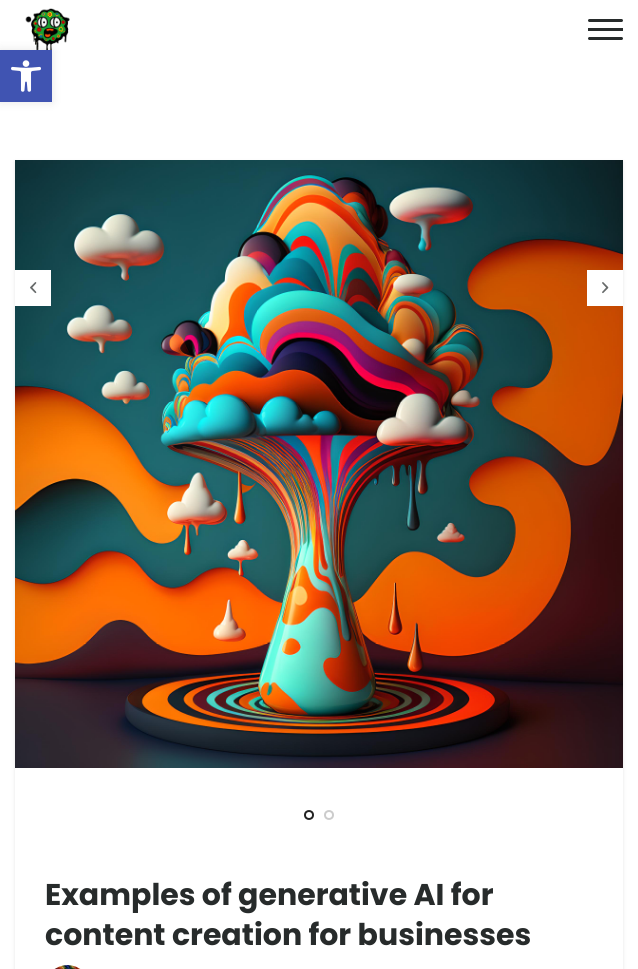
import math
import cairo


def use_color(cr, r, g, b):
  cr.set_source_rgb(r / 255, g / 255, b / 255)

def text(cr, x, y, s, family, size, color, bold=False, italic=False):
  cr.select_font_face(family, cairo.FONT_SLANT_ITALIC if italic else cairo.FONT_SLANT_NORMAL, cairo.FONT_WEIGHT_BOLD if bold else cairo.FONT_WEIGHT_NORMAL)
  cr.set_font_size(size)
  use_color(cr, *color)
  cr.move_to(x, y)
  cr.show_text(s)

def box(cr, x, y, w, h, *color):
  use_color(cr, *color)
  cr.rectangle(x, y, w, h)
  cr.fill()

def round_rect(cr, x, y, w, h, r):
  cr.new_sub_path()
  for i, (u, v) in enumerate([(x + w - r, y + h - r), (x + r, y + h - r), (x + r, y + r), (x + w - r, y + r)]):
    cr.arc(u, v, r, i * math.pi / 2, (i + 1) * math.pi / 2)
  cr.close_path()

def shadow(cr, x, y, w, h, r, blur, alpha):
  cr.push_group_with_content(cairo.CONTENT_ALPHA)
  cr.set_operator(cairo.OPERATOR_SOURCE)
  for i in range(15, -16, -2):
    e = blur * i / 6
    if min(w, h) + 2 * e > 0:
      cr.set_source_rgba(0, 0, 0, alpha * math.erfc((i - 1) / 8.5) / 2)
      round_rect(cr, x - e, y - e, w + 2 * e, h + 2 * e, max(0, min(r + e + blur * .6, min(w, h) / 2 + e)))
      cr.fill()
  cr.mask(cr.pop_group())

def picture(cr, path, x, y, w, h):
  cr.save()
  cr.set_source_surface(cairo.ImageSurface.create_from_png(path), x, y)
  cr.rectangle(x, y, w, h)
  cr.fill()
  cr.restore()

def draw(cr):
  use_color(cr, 255, 255, 255)
  cr.paint()
  picture(cr, "img_01.png", 25, 8, 45, 42)
  box(cr, 588, 28, 35, 3, 39, 43, 43)
  round_rect(cr, 588, 19, 35, 3, 1.5)
  cr.fill()
  round_rect(cr, 588, 37, 35, 3, 1.5)
  cr.fill()
  use_color(cr, 0, 0, 0)
  shadow(cr, 0, 50, 52, 52, 0, 5, 0.1)
  box(cr, 0, 50, 52, 52, 64, 84, 178)
  picture(cr, "img_02.png", 11, 60, 30, 32)
  cr.save()
  cr.set_fill_rule(cairo.FILL_RULE_EVEN_ODD)
  cr.new_path()
  cr.move_to(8, 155)
  cr.line_to(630, 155)
  cr.line_to(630, 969)
  cr.line_to(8, 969)
  cr.close_path()
  cr.move_to(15, 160)
  cr.line_to(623, 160)
  cr.line_to(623, 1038)
  cr.line_to(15, 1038)
  cr.close_path()
  cr.clip()
  use_color(cr, 0, 0, 0)
  shadow(cr, 15, 162, 608, 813, 0, 2, 0.1)
  cr.restore()
  picture(cr, "img_03.png", 15, 160, 608, 608)
  box(cr, 15, 270, 36, 36, 255, 255, 255)
  picture(cr, "img_04.png", 30, 282, 7, 12)
  box(cr, 587, 270, 36, 36, 255, 255, 255)
  picture(cr, "img_05.png", 602, 282, 7, 12)
  cr.arc(309, 815, 4, 0, 2 * math.pi)
  use_color(cr, 34, 34, 34)
  cr.stroke()
  cr.arc(329, 815, 4, 0, 2 * math.pi)
  use_color(cr, 204, 204, 204)
  cr.stroke()
  picture(cr, "img_06.png", 54, 965, 27, 4)
  text(cr, 45, 905, "Examples of generative AI for", "Poppins", 30, (39, 43, 43), bold=True)
  text(cr, 45, 945, "content creation for businesses", "Poppins", 30, (39, 43, 43), bold=True)


surface = cairo.ImageSurface(cairo.FORMAT_RGB24, 638, 969)
cr = cairo.Context(surface)
options = cairo.FontOptions()
options.set_hint_metrics(cairo.HINT_METRICS_OFF)
options.set_hint_style(cairo.HINT_STYLE_NONE)
cr.set_font_options(options)
cr.set_miter_limit(4)
draw(cr)
surface.write_to_png("out.png")
